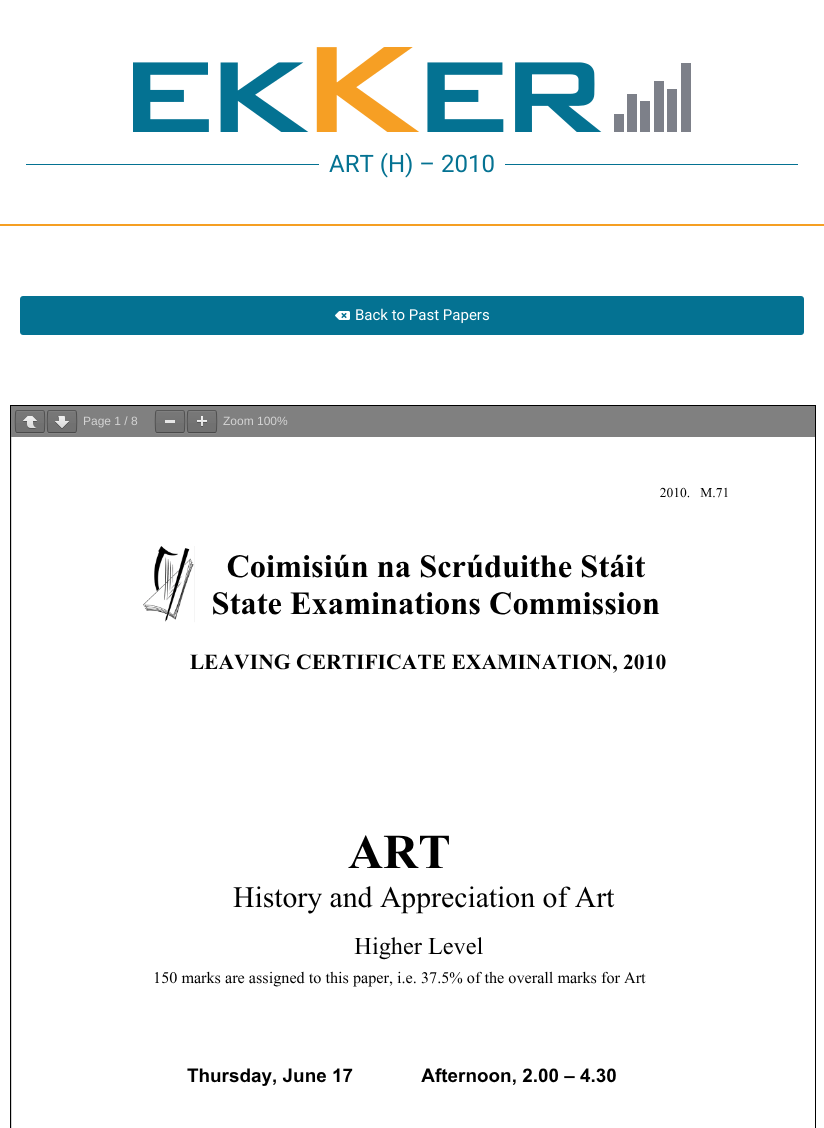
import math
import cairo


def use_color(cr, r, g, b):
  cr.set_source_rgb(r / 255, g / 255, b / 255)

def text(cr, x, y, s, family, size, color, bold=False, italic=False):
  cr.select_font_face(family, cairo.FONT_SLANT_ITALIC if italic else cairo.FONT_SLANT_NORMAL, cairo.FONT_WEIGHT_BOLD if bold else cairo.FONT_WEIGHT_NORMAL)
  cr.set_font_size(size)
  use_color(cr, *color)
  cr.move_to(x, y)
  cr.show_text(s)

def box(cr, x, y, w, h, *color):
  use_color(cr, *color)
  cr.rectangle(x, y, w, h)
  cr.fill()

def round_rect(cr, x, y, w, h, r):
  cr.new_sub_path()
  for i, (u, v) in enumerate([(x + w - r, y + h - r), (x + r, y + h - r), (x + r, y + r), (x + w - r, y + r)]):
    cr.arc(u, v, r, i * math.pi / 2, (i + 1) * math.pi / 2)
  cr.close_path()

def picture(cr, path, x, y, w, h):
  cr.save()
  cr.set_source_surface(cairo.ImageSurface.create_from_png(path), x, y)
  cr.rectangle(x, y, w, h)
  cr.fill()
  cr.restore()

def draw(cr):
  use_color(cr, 255, 255, 255)
  cr.paint()
  box(cr, 0, 224, 824, 2, 245, 159, 35)
  picture(cr, "img_01.png", 133, 47, 558, 85)
  box(cr, 26, 164, 293, 1, 4, 114, 146)
  box(cr, 505, 164, 293, 1, 4, 114, 146)
  round_rect(cr, 20, 296, 784, 39, 3)
  cr.fill()
  picture(cr, "img_02.png", 335, 311, 15, 9)
  box(cr, 11, 437, 1, 691, 211, 211, 211)
  cr.rectangle(10.5, 405.5, 805, 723)
  use_color(cr, 0, 0, 0)
  cr.set_line_width(1)
  cr.stroke()
  box(cr, 11, 406, 804, 31, 128, 128, 128)
  use_color(cr, 134, 134, 134)
  cr.new_path()
  cr.move_to(15, 431)
  cr.curve_to(15, 435, 17.5, 434, 21.5, 434)
  cr.line_to(38.5, 434)
  cr.curve_to(42.5, 434, 45, 435, 45, 431)
  cr.curve_to(45, 432, 44, 433, 43, 433)
  cr.line_to(17, 433)
  cr.curve_to(16, 433, 15, 432, 15, 431)
  cr.close_path()
  cr.fill()
  use_color(cr, 113, 113, 113)
  round_rect(cr, 16, 411, 28, 21, 1)
  cr.fill()
  gradient = cairo.LinearGradient(30, 411, 30, 432)
  gradient.add_color_stop_rgba(0, 1, 1, 1, 0.05)
  gradient.add_color_stop_rgba(1, 1, 1, 1, 0)
  cr.set_source(gradient)
  cr.rectangle(16, 411, 28, 12)
  cr.fill()
  use_color(cr, 127, 127, 127)
  cr.new_path()
  cr.move_to(17, 412)
  cr.line_to(44, 412)
  cr.line_to(44, 413)
  cr.curve_to(44, 410, 42, 411, 38.5, 411)
  cr.line_to(21.5, 411)
  cr.curve_to(18, 411, 16, 410, 16, 413)
  cr.curve_to(16, 412, 16, 412, 17, 412)
  cr.close_path()
  cr.fill()
  cr.new_path()
  cr.move_to(16, 411)
  cr.line_to(17, 410.5)
  cr.line_to(43, 410.5)
  cr.line_to(44, 411)
  use_color(cr, 87, 87, 87)
  cr.stroke()
  cr.new_path()
  cr.move_to(44, 411)
  cr.curve_to(45, 412, 45, 431, 44, 432)
  use_color(cr, 79, 79, 79)
  cr.stroke()
  cr.new_path()
  cr.move_to(44, 432)
  cr.line_to(43, 432.5)
  cr.line_to(17, 432.5)
  cr.line_to(16, 432)
  use_color(cr, 74, 74, 74)
  cr.stroke()
  cr.new_path()
  cr.move_to(16, 432)
  cr.curve_to(15, 431, 15, 412, 16, 411)
  use_color(cr, 79, 79, 79)
  cr.stroke()
  picture(cr, "img_03.png", 23, 416, 14, 13)
  use_color(cr, 134, 134, 134)
  cr.new_path()
  cr.move_to(47, 431)
  cr.curve_to(47, 435, 49.5, 434, 53.5, 434)
  cr.line_to(70.5, 434)
  cr.curve_to(74.5, 434, 77, 435, 77, 431)
  cr.curve_to(77, 432, 76, 433, 75, 433)
  cr.line_to(49, 433)
  cr.curve_to(48, 433, 47, 432, 47, 431)
  cr.close_path()
  cr.fill()
  use_color(cr, 113, 113, 113)
  round_rect(cr, 48, 411, 28, 21, 1)
  cr.fill()
  gradient = cairo.LinearGradient(62, 411, 62, 432)
  gradient.add_color_stop_rgba(0, 1, 1, 1, 0.05)
  gradient.add_color_stop_rgba(1, 1, 1, 1, 0)
  cr.set_source(gradient)
  cr.rectangle(48, 411, 28, 12)
  cr.fill()
  use_color(cr, 127, 127, 127)
  cr.new_path()
  cr.move_to(49, 412)
  cr.line_to(76, 412)
  cr.line_to(76, 413)
  cr.curve_to(76, 410, 74, 411, 70.5, 411)
  cr.line_to(53.5, 411)
  cr.curve_to(50, 411, 48, 410, 48, 413)
  cr.curve_to(48, 412, 48, 412, 49, 412)
  cr.close_path()
  cr.fill()
  cr.new_path()
  cr.move_to(48, 411)
  cr.line_to(49, 410.5)
  cr.line_to(75, 410.5)
  cr.line_to(76, 411)
  use_color(cr, 87, 87, 87)
  cr.stroke()
  cr.new_path()
  cr.move_to(76, 411)
  cr.curve_to(77, 412, 77, 431, 76, 432)
  use_color(cr, 79, 79, 79)
  cr.stroke()
  cr.new_path()
  cr.move_to(76, 432)
  cr.line_to(75, 432.5)
  cr.line_to(49, 432.5)
  cr.line_to(48, 432)
  use_color(cr, 74, 74, 74)
  cr.stroke()
  cr.new_path()
  cr.move_to(48, 432)
  cr.curve_to(47, 431, 47, 412, 48, 411)
  use_color(cr, 79, 79, 79)
  cr.stroke()
  picture(cr, "img_04.png", 55, 416, 14, 13)
  use_color(cr, 134, 134, 134)
  cr.new_path()
  cr.move_to(155, 431)
  cr.curve_to(155, 435, 157.5, 434, 161.5, 434)
  cr.line_to(178.5, 434)
  cr.curve_to(182.5, 434, 185, 435, 185, 431)
  cr.curve_to(185, 432, 184, 433, 183, 433)
  cr.line_to(157, 433)
  cr.curve_to(156, 433, 155, 432, 155, 431)
  cr.close_path()
  cr.fill()
  use_color(cr, 113, 113, 113)
  round_rect(cr, 156, 411, 28, 21, 1)
  cr.fill()
  gradient = cairo.LinearGradient(170, 411, 170, 432)
  gradient.add_color_stop_rgba(0, 1, 1, 1, 0.05)
  gradient.add_color_stop_rgba(1, 1, 1, 1, 0)
  cr.set_source(gradient)
  cr.rectangle(156, 411, 28, 12)
  cr.fill()
  use_color(cr, 127, 127, 127)
  cr.new_path()
  cr.move_to(157, 412)
  cr.line_to(184, 412)
  cr.line_to(184, 413)
  cr.curve_to(184, 410, 182, 411, 178.5, 411)
  cr.line_to(161.5, 411)
  cr.curve_to(158, 411, 156, 410, 156, 413)
  cr.curve_to(156, 412, 156, 412, 157, 412)
  cr.close_path()
  cr.fill()
  cr.new_path()
  cr.move_to(156, 411)
  cr.line_to(157, 410.5)
  cr.line_to(183, 410.5)
  cr.line_to(184, 411)
  use_color(cr, 87, 87, 87)
  cr.stroke()
  cr.new_path()
  cr.move_to(184, 411)
  cr.curve_to(185, 412, 185, 431, 184, 432)
  use_color(cr, 79, 79, 79)
  cr.stroke()
  cr.new_path()
  cr.move_to(184, 432)
  cr.line_to(183, 432.5)
  cr.line_to(157, 432.5)
  cr.line_to(156, 432)
  use_color(cr, 74, 74, 74)
  cr.stroke()
  cr.new_path()
  cr.move_to(156, 432)
  cr.curve_to(155, 431, 155, 412, 156, 411)
  use_color(cr, 79, 79, 79)
  cr.stroke()
  box(cr, 165, 420, 10, 3, 230, 230, 230)
  use_color(cr, 134, 134, 134)
  cr.new_path()
  cr.move_to(187, 431)
  cr.curve_to(187, 435, 189.5, 434, 193.5, 434)
  cr.line_to(210.5, 434)
  cr.curve_to(214.5, 434, 217, 435, 217, 431)
  cr.curve_to(217, 432, 216, 433, 215, 433)
  cr.line_to(189, 433)
  cr.curve_to(188, 433, 187, 432, 187, 431)
  cr.close_path()
  cr.fill()
  use_color(cr, 113, 113, 113)
  round_rect(cr, 188, 411, 28, 21, 1)
  cr.fill()
  gradient = cairo.LinearGradient(202, 411, 202, 432)
  gradient.add_color_stop_rgba(0, 1, 1, 1, 0.05)
  gradient.add_color_stop_rgba(1, 1, 1, 1, 0)
  cr.set_source(gradient)
  cr.rectangle(188, 411, 28, 12)
  cr.fill()
  use_color(cr, 127, 127, 127)
  cr.new_path()
  cr.move_to(189, 412)
  cr.line_to(216, 412)
  cr.line_to(216, 413)
  cr.curve_to(216, 410, 214, 411, 210.5, 411)
  cr.line_to(193.5, 411)
  cr.curve_to(190, 411, 188, 410, 188, 413)
  cr.curve_to(188, 412, 188, 412, 189, 412)
  cr.close_path()
  cr.fill()
  cr.new_path()
  cr.move_to(188, 411)
  cr.line_to(189, 410.5)
  cr.line_to(215, 410.5)
  cr.line_to(216, 411)
  use_color(cr, 87, 87, 87)
  cr.stroke()
  cr.new_path()
  cr.move_to(216, 411)
  cr.curve_to(217, 412, 217, 431, 216, 432)
  use_color(cr, 79, 79, 79)
  cr.stroke()
  cr.new_path()
  cr.move_to(216, 432)
  cr.line_to(215, 432.5)
  cr.line_to(189, 432.5)
  cr.line_to(188, 432)
  use_color(cr, 74, 74, 74)
  cr.stroke()
  cr.new_path()
  cr.move_to(188, 432)
  cr.curve_to(187, 431, 187, 412, 188, 411)
  use_color(cr, 79, 79, 79)
  cr.stroke()
  picture(cr, "img_05.png", 197, 416, 10, 11)
  picture(cr, "img_06.png", 143, 487, 585, 599)
  text(cr, 329, 172, "ART (H) – 2010", "Roboto", 24, (4, 114, 146))
  text(cr, 355, 320, "Back to Past Papers", "Roboto", 15, (255, 255, 255))
  text(cr, 83, 425, "Page 1 / 8", "Liberation Sans", 12, (211, 211, 211))
  text(cr, 223, 425, "Zoom 100%", "Liberation Sans", 12, (211, 211, 211))


surface = cairo.ImageSurface(cairo.FORMAT_RGB24, 824, 1128)
cr = cairo.Context(surface)
options = cairo.FontOptions()
options.set_hint_metrics(cairo.HINT_METRICS_OFF)
options.set_hint_style(cairo.HINT_STYLE_NONE)
cr.set_font_options(options)
cr.set_miter_limit(4)
draw(cr)
surface.write_to_png("out.png")
